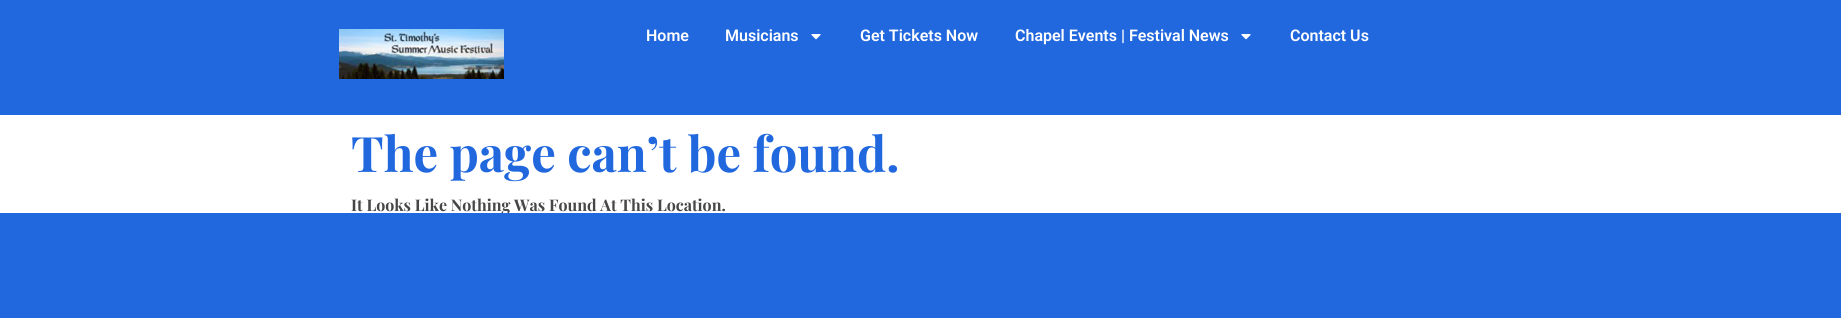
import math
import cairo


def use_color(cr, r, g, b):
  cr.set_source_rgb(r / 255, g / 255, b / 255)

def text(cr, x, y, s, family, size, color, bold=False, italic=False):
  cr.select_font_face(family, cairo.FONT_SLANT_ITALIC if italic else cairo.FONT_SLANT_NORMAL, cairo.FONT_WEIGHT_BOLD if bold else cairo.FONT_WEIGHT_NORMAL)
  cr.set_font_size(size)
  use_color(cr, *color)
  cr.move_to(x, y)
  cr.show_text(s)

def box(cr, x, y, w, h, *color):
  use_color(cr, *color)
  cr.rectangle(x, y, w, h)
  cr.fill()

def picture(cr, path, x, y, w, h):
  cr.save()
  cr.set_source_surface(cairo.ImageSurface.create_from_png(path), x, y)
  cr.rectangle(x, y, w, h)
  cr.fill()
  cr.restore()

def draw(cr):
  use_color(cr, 255, 255, 255)
  cr.paint()
  box(cr, 0, 0, 1841, 115, 33, 104, 222)
  picture(cr, "img_01.png", 339, 29, 165, 50)
  picture(cr, "img_02.png", 811, 34, 10, 6)
  picture(cr, "img_02.png", 1241, 34, 10, 6)
  text(cr, 646, 41, "Home", "Roboto SemiBold", 16, (255, 255, 255))
  text(cr, 725, 41, "Musicians", "Roboto SemiBold", 16, (255, 255, 255))
  text(cr, 860, 41, "Get Tickets Now", "Roboto SemiBold", 16, (255, 255, 255))
  text(cr, 1015, 41, "Chapel Events | Festival News", "Roboto SemiBold", 16, (255, 255, 255))
  text(cr, 1290, 41, "Contact Us", "Roboto SemiBold", 16, (255, 255, 255))
  text(cr, 351, 172, "The page can’t be found.", "Playfair Display", 48.9, (33, 104, 222), bold=True)
  text(cr, 351, 211, "It Looks Like Nothing Was Found At This Location.", "Playfair Display", 16, (70, 70, 70), bold=True)
  box(cr, 0, 213, 1841, 105, 33, 104, 222)


surface = cairo.ImageSurface(cairo.FORMAT_RGB24, 1841, 318)
cr = cairo.Context(surface)
options = cairo.FontOptions()
options.set_hint_metrics(cairo.HINT_METRICS_OFF)
options.set_hint_style(cairo.HINT_STYLE_NONE)
cr.set_font_options(options)
cr.set_miter_limit(4)
draw(cr)
surface.write_to_png("out.png")
